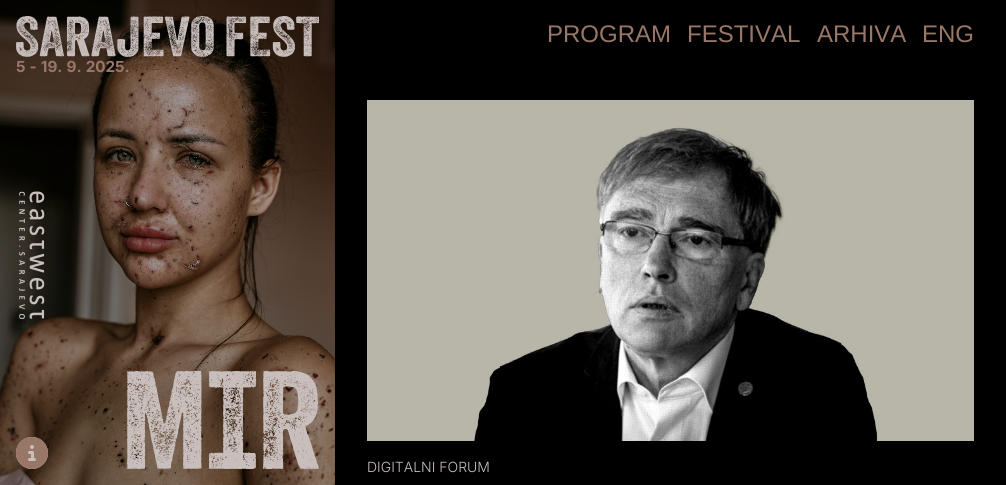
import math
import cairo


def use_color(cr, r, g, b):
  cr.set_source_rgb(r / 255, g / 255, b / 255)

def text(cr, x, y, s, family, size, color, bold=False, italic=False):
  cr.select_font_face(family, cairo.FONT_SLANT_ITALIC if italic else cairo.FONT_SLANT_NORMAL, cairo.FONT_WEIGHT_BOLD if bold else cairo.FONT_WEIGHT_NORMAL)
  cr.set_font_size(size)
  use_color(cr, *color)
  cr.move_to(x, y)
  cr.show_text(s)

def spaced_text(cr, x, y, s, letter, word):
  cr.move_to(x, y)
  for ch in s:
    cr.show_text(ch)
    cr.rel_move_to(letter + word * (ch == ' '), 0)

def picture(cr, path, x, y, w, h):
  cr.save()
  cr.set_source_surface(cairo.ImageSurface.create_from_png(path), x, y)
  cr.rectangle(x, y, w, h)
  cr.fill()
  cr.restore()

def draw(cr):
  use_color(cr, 0, 0, 0)
  cr.paint()
  picture(cr, "img_01.png", 0, 0, 335, 485)
  picture(cr, "img_02.png", 16, 16, 303, 41)
  picture(cr, "img_03.png", 19, 191, 26, 128)
  picture(cr, "img_04.png", 127, 371, 192, 98)
  use_color(cr, 200, 190, 188)
  cr.arc(32, 453, 16, 0, 2 * math.pi)
  cr.fill()
  picture(cr, "img_05.png", 16, 437, 32, 32)
  picture(cr, "img_06.png", 367, 100, 607, 341)
  text(cr, 547, 42, "PROGRAM", "Liberation Sans", 24, (153, 119, 102))
  text(cr, 687, 42, "FESTIVAL", "Liberation Sans", 24, (153, 119, 102))
  text(cr, 817, 42, "ARHIVA", "Liberation Sans", 24, (153, 119, 102))
  text(cr, 922, 42, "ENG", "Liberation Sans", 24, (153, 119, 102))
  cr.select_font_face("Inter", cairo.FONT_SLANT_NORMAL, cairo.FONT_WEIGHT_BOLD)
  cr.set_font_size(15.25)
  spaced_text(cr, 16, 72, "5 - 19. 9. 2025.", 0, 0.5)
  text(cr, 367, 472, "DIGITALNI FORUM", "Inter Light", 14, (200, 190, 188))


surface = cairo.ImageSurface(cairo.FORMAT_RGB24, 1006, 485)
cr = cairo.Context(surface)
options = cairo.FontOptions()
options.set_hint_metrics(cairo.HINT_METRICS_OFF)
options.set_hint_style(cairo.HINT_STYLE_NONE)
cr.set_font_options(options)
cr.set_miter_limit(4)
draw(cr)
surface.write_to_png("out.png")
